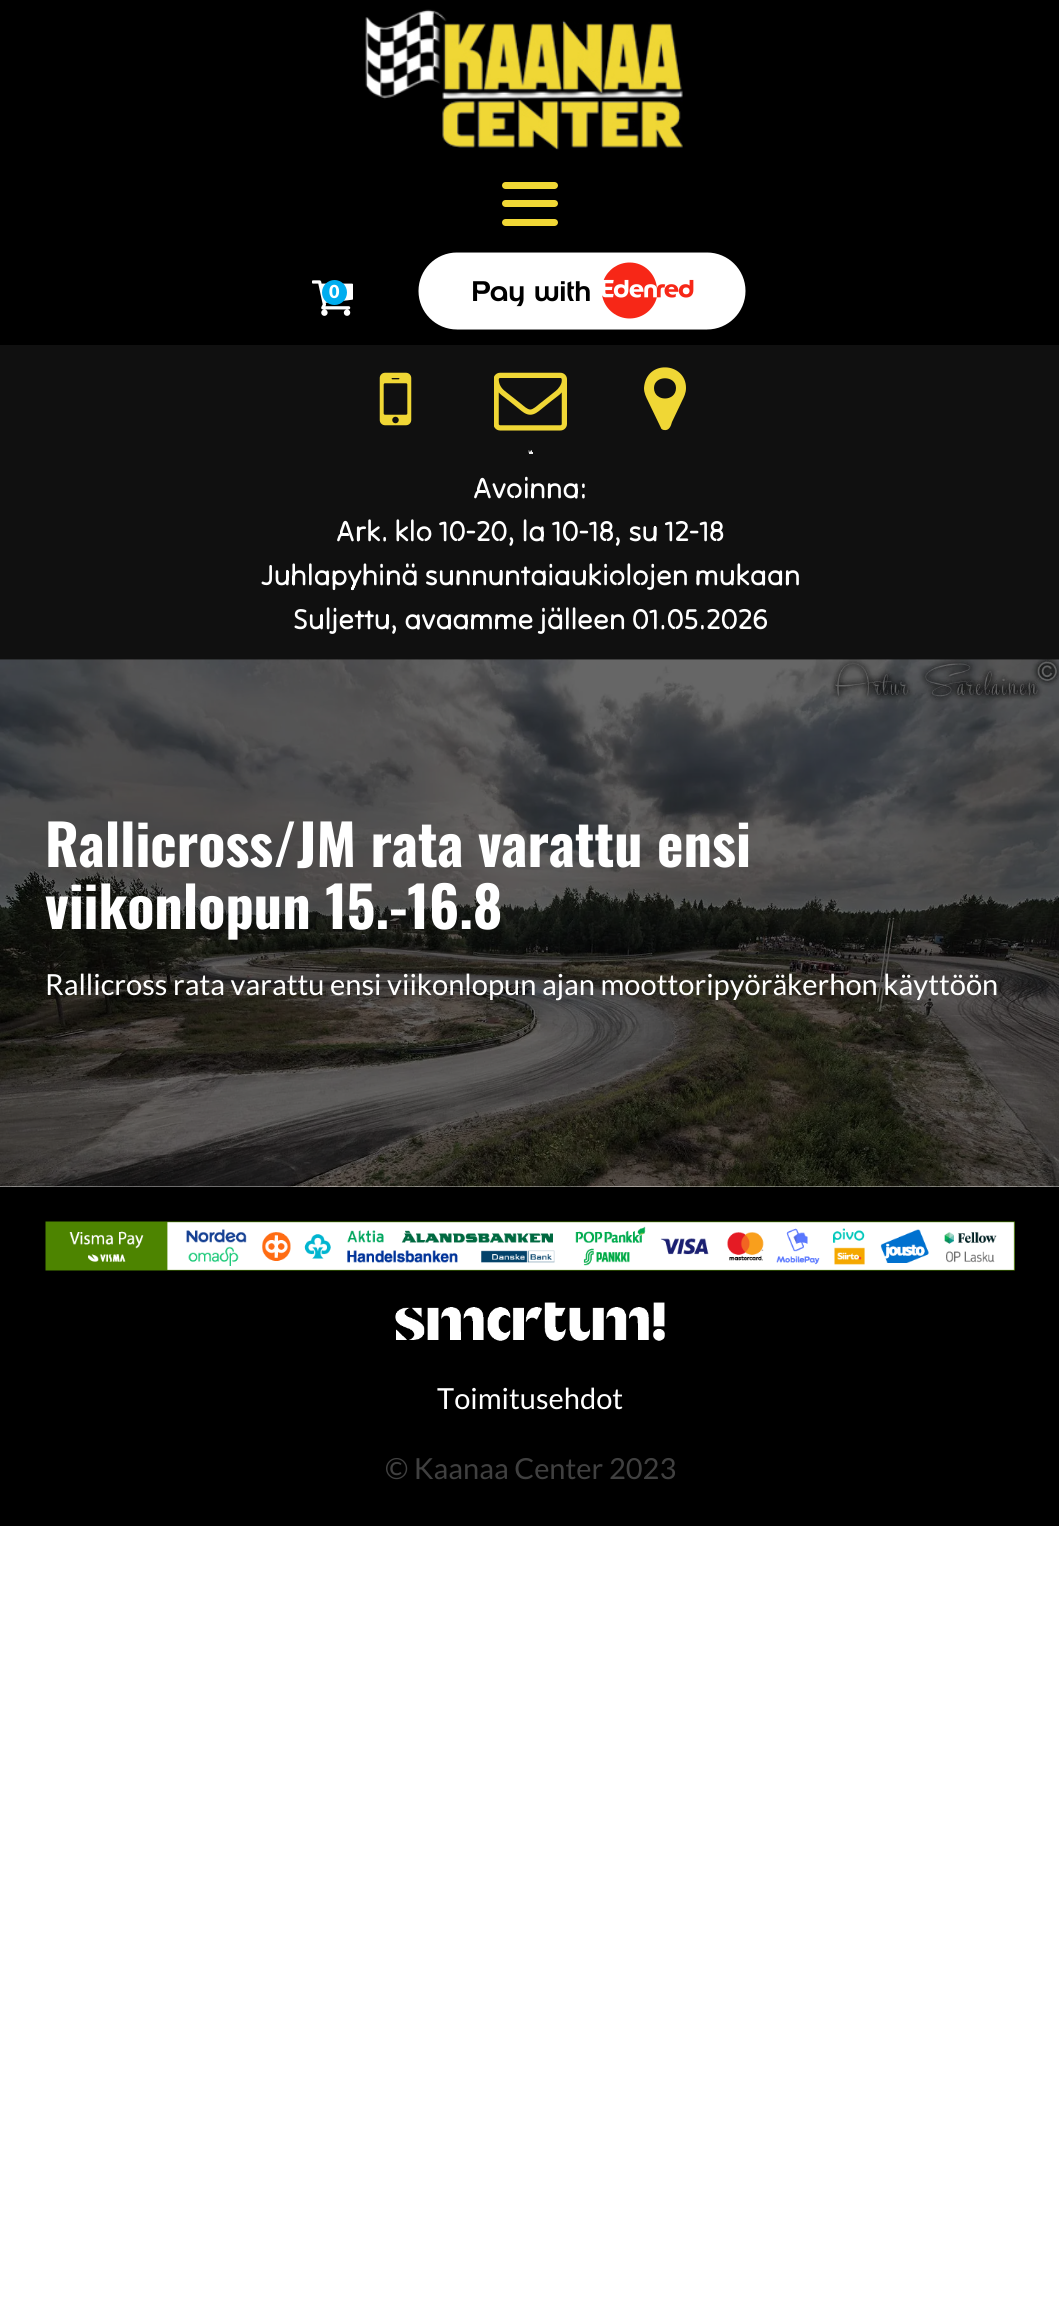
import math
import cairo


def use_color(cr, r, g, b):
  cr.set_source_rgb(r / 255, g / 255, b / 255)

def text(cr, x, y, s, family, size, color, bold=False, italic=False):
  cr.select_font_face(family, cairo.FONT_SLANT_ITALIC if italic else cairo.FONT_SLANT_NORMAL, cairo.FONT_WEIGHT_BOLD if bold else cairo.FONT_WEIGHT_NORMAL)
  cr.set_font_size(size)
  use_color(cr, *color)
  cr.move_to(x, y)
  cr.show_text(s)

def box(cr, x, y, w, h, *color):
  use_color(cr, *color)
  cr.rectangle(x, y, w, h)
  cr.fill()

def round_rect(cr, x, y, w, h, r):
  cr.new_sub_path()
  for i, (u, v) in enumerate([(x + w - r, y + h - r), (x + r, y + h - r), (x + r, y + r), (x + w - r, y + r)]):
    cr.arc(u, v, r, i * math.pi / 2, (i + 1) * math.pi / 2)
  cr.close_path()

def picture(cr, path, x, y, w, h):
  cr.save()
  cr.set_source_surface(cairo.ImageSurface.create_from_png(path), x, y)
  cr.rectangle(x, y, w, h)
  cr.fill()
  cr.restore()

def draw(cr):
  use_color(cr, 255, 255, 255)
  cr.paint()
  box(cr, 0, 0, 1059, 345, 0, 0, 0)
  picture(cr, "img_01.png", 365, 9, 318, 141)
  use_color(cr, 240, 215, 53)
  round_rect(cr, 502, 182, 56, 7, 3.5)
  cr.fill()
  round_rect(cr, 502, 200, 56, 7, 3.5)
  cr.fill()
  round_rect(cr, 502, 219, 56, 7, 3.5)
  cr.fill()
  picture(cr, "img_02.png", 312, 280, 41, 36)
  use_color(cr, 0, 173, 239)
  cr.arc(334.5, 292.5, 12.5, 0, 2 * math.pi)
  cr.fill()
  picture(cr, "img_03.png", 418, 252, 328, 78)
  box(cr, 0, 345, 1059, 315, 16, 16, 16)
  picture(cr, "img_04.png", 379, 372, 33, 54)
  picture(cr, "img_05.png", 494, 372, 73, 59)
  use_color(cr, 240, 215, 53)
  cr.new_path()
  cr.move_to(676, 388)
  cr.curve_to(676, 375, 654, 375, 654, 388)
  cr.curve_to(654, 402, 676, 402, 676, 388)
  cr.close_path()
  cr.move_to(686, 388)
  cr.curve_to(686, 393, 684, 397, 682, 401)
  cr.line_to(672, 422)
  cr.curve_to(671, 426, 669, 431, 664, 430)
  cr.curve_to(663, 430, 661, 429, 661, 428)
  cr.line_to(648, 401)
  cr.curve_to(646, 397, 644, 393, 644, 388)
  cr.curve_to(646, 359, 686, 362, 686, 388)
  cr.close_path()
  cr.fill()
  use_color(cr, 37, 37, 37)
  cr.new_path()
  cr.move_to(528.5, 450)
  cr.line_to(532, 450)
  cr.line_to(530, 451.5)
  cr.close_path()
  cr.fill()
  use_color(cr, 238, 238, 238)
  cr.new_path()
  cr.move_to(532, 450)
  cr.line_to(532, 453)
  cr.line_to(530, 451.5)
  cr.close_path()
  cr.fill()
  box(cr, 529, 452, 4, 2, 238, 238, 238)
  use_color(cr, 159, 159, 159)
  cr.new_path()
  cr.move_to(528.5, 453)
  cr.line_to(528.5, 450)
  cr.line_to(530, 451.5)
  cr.close_path()
  cr.fill()
  picture(cr, "img_06.png", 0, 659, 1059, 528)
  box(cr, 0, 1187, 1059, 339, 0, 0, 0)
  picture(cr, "img_07.png", 45, 1221, 970, 50)
  picture(cr, "img_08.png", 395, 1302, 270, 39)
  text(cr, 329, 298, "0", "Lato Black", 18, (255, 255, 255))
  text(cr, 473, 498, "Avoinna:", "Tilt Neon", 29.05, (255, 255, 255))
  text(cr, 336, 541, "Ark. klo 10-20, la 10-18, su 12-18", "Tilt Neon", 29.05, (255, 255, 255))
  text(cr, 261, 585, "Juhlapyhinä sunnuntaiaukiolojen mukaan", "Tilt Neon", 29.05, (255, 255, 255))
  text(cr, 293, 629, "Suljettu, avaamme jälleen 01.05.2026", "Tilt Neon", 29.05, (255, 255, 255))
  text(cr, 45, 867, "Rallicross/JM rata varattu ensi", "Oswald", 56.25, (255, 255, 255), bold=True)
  text(cr, 45, 929, "viikonlopun 15.-16.8", "Oswald", 56.25, (255, 255, 255), bold=True)
  text(cr, 45, 995, "Rallicross rata varattu ensi viikonlopun ajan moottoripyöräkerhon käyttöön", "Lato", 29.05, (255, 255, 255))
  text(cr, 437, 1409, "Toimitusehdot", "Lato", 29.05, (255, 255, 255))
  text(cr, 385, 1479, "© Kaanaa Center 2023", "Lato", 29.05, (64, 64, 64))


surface = cairo.ImageSurface(cairo.FORMAT_RGB24, 1059, 2298)
cr = cairo.Context(surface)
options = cairo.FontOptions()
options.set_hint_metrics(cairo.HINT_METRICS_OFF)
options.set_hint_style(cairo.HINT_STYLE_NONE)
cr.set_font_options(options)
cr.set_miter_limit(4)
draw(cr)
surface.write_to_png("out.png")
